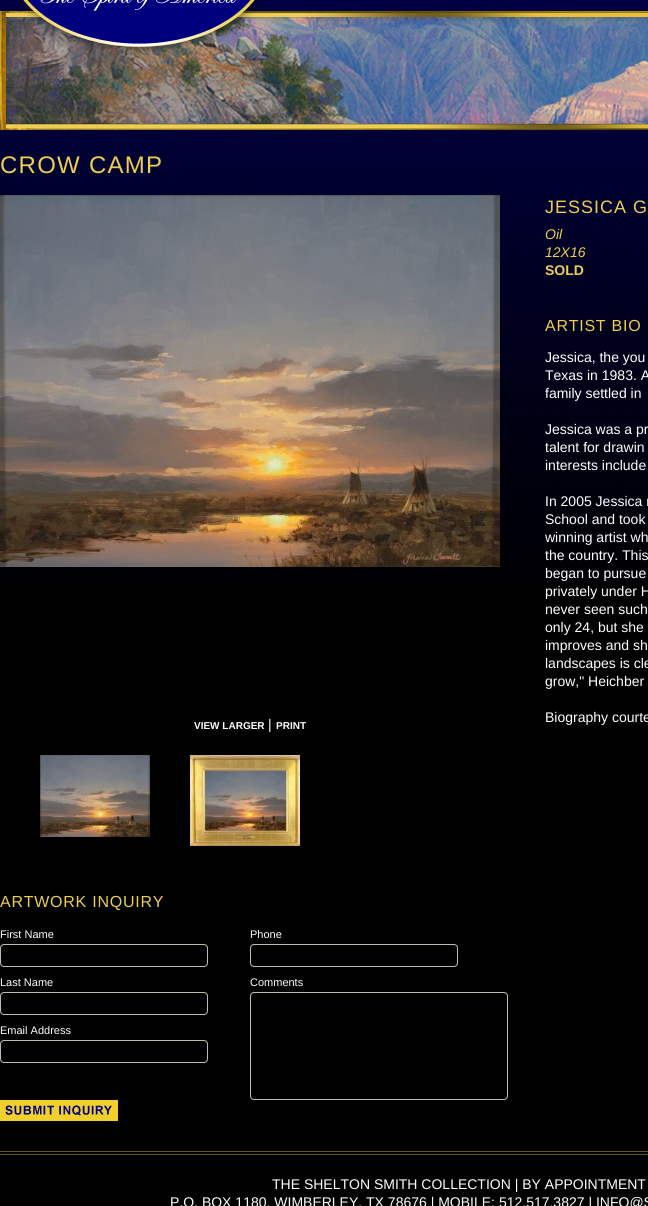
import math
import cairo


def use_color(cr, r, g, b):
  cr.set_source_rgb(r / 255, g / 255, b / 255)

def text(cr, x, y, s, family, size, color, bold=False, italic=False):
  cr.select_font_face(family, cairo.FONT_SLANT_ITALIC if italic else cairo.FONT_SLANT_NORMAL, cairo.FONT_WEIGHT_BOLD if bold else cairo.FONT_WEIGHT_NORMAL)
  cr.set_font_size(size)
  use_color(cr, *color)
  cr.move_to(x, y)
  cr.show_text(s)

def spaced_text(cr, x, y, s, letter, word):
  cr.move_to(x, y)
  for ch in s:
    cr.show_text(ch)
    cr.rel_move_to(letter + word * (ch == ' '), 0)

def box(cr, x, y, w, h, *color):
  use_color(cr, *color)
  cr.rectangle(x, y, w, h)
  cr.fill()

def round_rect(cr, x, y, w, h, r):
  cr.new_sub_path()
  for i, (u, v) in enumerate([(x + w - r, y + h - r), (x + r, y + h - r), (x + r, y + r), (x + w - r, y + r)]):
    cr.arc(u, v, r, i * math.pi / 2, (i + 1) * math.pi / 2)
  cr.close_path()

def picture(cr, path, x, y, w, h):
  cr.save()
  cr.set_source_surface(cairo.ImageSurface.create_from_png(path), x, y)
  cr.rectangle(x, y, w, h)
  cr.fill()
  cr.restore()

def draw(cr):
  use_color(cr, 0, 0, 0)
  cr.paint()
  picture(cr, "img_01.png", 0, 0, 648, 586)
  picture(cr, "img_03.png", 0, 11, 648, 119)
  picture(cr, "img_02.png", 17, 0, 246, 55)
  picture(cr, "img_04.png", 0, 195, 500, 372)
  picture(cr, "img_05.png", 40, 755, 110, 82)
  picture(cr, "img_06.png", 190, 755, 110, 91)
  round_rect(cr, 0.5, 944.5, 207, 22, 3.5)
  use_color(cr, 191, 190, 174)
  cr.set_line_width(1)
  cr.stroke()
  round_rect(cr, 0.5, 992.5, 207, 22, 3.5)
  cr.stroke()
  round_rect(cr, 0.5, 1040.5, 207, 22, 3.5)
  cr.stroke()
  round_rect(cr, 250.5, 944.5, 207, 22, 3.5)
  cr.stroke()
  round_rect(cr, 250.5, 992.5, 257, 107, 3.5)
  cr.stroke()
  picture(cr, "img_07.png", 0, 1100, 118, 21)
  box(cr, 0, 1151, 648, 1, 99, 85, 30)
  box(cr, 0, 1154, 648, 1, 99, 85, 30)
  cr.select_font_face("Liberation Sans")
  cr.set_font_size(24)
  use_color(cr, 238, 206, 81)
  spaced_text(cr, 0, 173, "CROW CAMP", 1.25, 0)
  cr.set_font_size(18)
  spaced_text(cr, 545, 213, "JESSICA G", 1, 0)
  text(cr, 545, 239, "Oil", "Liberation Sans", 14, (238, 206, 81), italic=True)
  text(cr, 545, 257, "12X16", "Liberation Sans", 14, (238, 206, 81), italic=True)
  text(cr, 545, 275, "SOLD", "Liberation Sans", 14, (238, 206, 81), bold=True)
  cr.select_font_face("Liberation Sans")
  cr.set_font_size(16)
  spaced_text(cr, 545, 331, "ARTIST BIO", 0.75, 0)
  text(cr, 545, 362, "Jessica, the you", "Liberation Sans", 14, (255, 255, 255))
  text(cr, 545, 380, "Texas in 1983. A", "Liberation Sans", 14, (255, 255, 255))
  text(cr, 545, 398, "family settled in", "Liberation Sans", 14, (255, 255, 255))
  text(cr, 545, 434, "Jessica was a pr", "Liberation Sans", 14, (255, 255, 255))
  text(cr, 545, 452, "talent for drawin", "Liberation Sans", 14, (255, 255, 255))
  text(cr, 545, 470, "interests include", "Liberation Sans", 14, (255, 255, 255))
  text(cr, 545, 506, "In 2005 Jessica r", "Liberation Sans", 14, (255, 255, 255))
  text(cr, 545, 524, "School and took", "Liberation Sans", 14, (255, 255, 255))
  text(cr, 545, 542, "winning artist wh", "Liberation Sans", 14, (255, 255, 255))
  text(cr, 545, 560, "the country. This", "Liberation Sans", 14, (255, 255, 255))
  text(cr, 545, 578, "began to pursue", "Liberation Sans", 14, (255, 255, 255))
  text(cr, 545, 596, "privately under H", "Liberation Sans", 14, (255, 255, 255))
  text(cr, 545, 614, "never seen such", "Liberation Sans", 14, (255, 255, 255))
  text(cr, 545, 632, "only 24, but she", "Liberation Sans", 14, (255, 255, 255))
  text(cr, 545, 650, "improves and sh", "Liberation Sans", 14, (255, 255, 255))
  text(cr, 545, 668, "landscapes is cle", "Liberation Sans", 14, (255, 255, 255))
  text(cr, 545, 686, "grow,\" Heichber", "Liberation Sans", 14, (255, 255, 255))
  text(cr, 545, 722, "Biography courte", "Liberation Sans", 14, (255, 255, 255))
  text(cr, 194, 729, "VIEW LARGER", "Liberation Sans", 10, (255, 255, 255), bold=True)
  text(cr, 268, 729, "|", "Liberation Sans", 14, (255, 255, 255))
  text(cr, 276, 729, "PRINT", "Liberation Sans", 10, (255, 255, 255), bold=True)
  cr.select_font_face("Liberation Sans")
  cr.set_font_size(16)
  use_color(cr, 238, 206, 81)
  spaced_text(cr, 0, 907, "ARTWORK INQUIRY", 0.75, 0)
  text(cr, 0, 938, "First Name", "Liberation Sans", 11, (255, 255, 255))
  text(cr, 0, 986, "Last Name", "Liberation Sans", 11, (255, 255, 255))
  text(cr, 0, 1034, "Email Address", "Liberation Sans", 11, (255, 255, 255))
  text(cr, 250, 938, "Phone", "Liberation Sans", 11, (255, 255, 255))
  text(cr, 250, 986, "Comments", "Liberation Sans", 11, (255, 255, 255))
  text(cr, 272, 1189, "THE SHELTON SMITH COLLECTION | BY APPOINTMENT", "Liberation Sans", 14, (255, 255, 255))
  text(cr, 170, 1207, "P.O. BOX 1180, WIMBERLEY, TX 78676 | MOBILE: 512.517.3827 | INFO@S", "Liberation Sans", 14, (255, 255, 255))


surface = cairo.ImageSurface(cairo.FORMAT_RGB24, 648, 1206)
cr = cairo.Context(surface)
options = cairo.FontOptions()
options.set_hint_metrics(cairo.HINT_METRICS_OFF)
options.set_hint_style(cairo.HINT_STYLE_NONE)
cr.set_font_options(options)
cr.set_miter_limit(4)
draw(cr)
surface.write_to_png("out.png")
